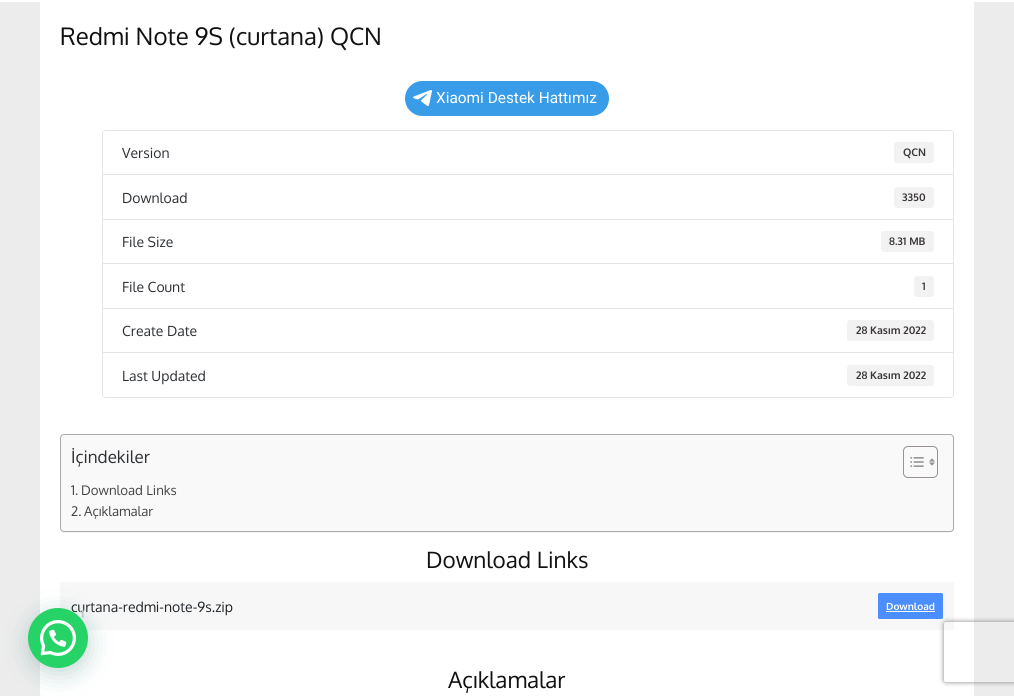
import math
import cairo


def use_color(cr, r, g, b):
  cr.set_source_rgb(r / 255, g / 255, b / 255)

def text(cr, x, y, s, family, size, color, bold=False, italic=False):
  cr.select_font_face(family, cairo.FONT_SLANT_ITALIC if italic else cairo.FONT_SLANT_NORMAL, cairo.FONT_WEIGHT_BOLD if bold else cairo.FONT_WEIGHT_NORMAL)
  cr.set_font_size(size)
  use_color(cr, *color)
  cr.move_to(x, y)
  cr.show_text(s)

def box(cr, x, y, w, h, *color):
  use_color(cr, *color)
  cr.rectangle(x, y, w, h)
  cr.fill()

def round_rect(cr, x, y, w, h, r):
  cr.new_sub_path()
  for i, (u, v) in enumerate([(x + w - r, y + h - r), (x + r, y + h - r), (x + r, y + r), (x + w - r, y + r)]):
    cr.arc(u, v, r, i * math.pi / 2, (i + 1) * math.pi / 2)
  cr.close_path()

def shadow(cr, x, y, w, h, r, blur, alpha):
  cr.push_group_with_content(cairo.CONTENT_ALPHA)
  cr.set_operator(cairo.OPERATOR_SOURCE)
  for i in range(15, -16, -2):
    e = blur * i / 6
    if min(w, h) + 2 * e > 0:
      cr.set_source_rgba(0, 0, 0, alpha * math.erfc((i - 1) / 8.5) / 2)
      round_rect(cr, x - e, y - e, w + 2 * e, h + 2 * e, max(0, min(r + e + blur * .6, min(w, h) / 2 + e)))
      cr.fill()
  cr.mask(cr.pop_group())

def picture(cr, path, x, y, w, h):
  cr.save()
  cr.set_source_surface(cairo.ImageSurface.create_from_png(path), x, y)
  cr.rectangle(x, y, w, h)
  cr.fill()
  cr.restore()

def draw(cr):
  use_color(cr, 236, 236, 236)
  cr.paint()
  box(cr, 0, 0, 1014, 2, 255, 255, 255)
  box(cr, 40, 2, 934, 694, 255, 255, 255)
  use_color(cr, 56, 156, 233)
  round_rect(cr, 405, 81, 204, 35, 17.5)
  cr.fill()
  picture(cr, "img_01.png", 413, 90, 19, 16)
  cr.new_path()
  cr.move_to(106, 130.5)
  cr.line_to(950, 130.5)
  cr.curve_to(952, 130.5, 953.5, 132, 953.5, 134)
  cr.line_to(953.5, 174.5)
  cr.line_to(102.5, 174.5)
  cr.line_to(102.5, 134)
  cr.curve_to(102.5, 132, 104, 130.5, 106, 130.5)
  cr.close_path()
  use_color(cr, 229, 229, 229)
  cr.set_line_width(1)
  cr.stroke()
  use_color(cr, 242, 242, 242)
  round_rect(cr, 894, 142, 40, 21, 3)
  cr.fill()
  cr.rectangle(102.5, 174.5, 851, 45)
  use_color(cr, 229, 229, 229)
  cr.stroke()
  use_color(cr, 242, 242, 242)
  round_rect(cr, 894, 187, 40, 21, 3)
  cr.fill()
  cr.rectangle(102.5, 219.5, 851, 44)
  use_color(cr, 229, 229, 229)
  cr.stroke()
  use_color(cr, 242, 242, 242)
  round_rect(cr, 881, 231, 53, 21, 3)
  cr.fill()
  cr.rectangle(102.5, 263.5, 851, 45)
  use_color(cr, 229, 229, 229)
  cr.stroke()
  use_color(cr, 242, 242, 242)
  round_rect(cr, 914, 276, 20, 21, 3)
  cr.fill()
  cr.rectangle(102.5, 308.5, 851, 44)
  use_color(cr, 229, 229, 229)
  cr.stroke()
  use_color(cr, 242, 242, 242)
  round_rect(cr, 847, 320, 87, 21, 3)
  cr.fill()
  use_color(cr, 255, 255, 255)
  cr.new_path()
  cr.move_to(102.5, 352.5)
  cr.line_to(953.5, 352.5)
  cr.line_to(953.5, 394)
  cr.curve_to(953.5, 396, 952, 397.5, 950, 397.5)
  cr.line_to(106, 397.5)
  cr.curve_to(104, 397.5, 102.5, 396, 102.5, 394)
  cr.close_path()
  cr.fill_preserve()
  use_color(cr, 229, 229, 229)
  cr.stroke()
  use_color(cr, 242, 242, 242)
  round_rect(cr, 847, 365, 87, 21, 3)
  cr.fill()
  use_color(cr, 0, 0, 0)
  shadow(cr, 60, 435, 894, 98, 4, 0.5, 0.05)
  use_color(cr, 249, 249, 249)
  round_rect(cr, 60.5, 434.5, 893, 97, 3.5)
  cr.fill_preserve()
  use_color(cr, 170, 170, 170)
  cr.stroke()
  round_rect(cr, 903.5, 446.5, 34, 31, 4.5)
  use_color(cr, 153, 145, 145)
  cr.stroke()
  picture(cr, "img_02.png", 910, 457, 14, 10)
  picture(cr, "img_03.png", 929, 458, 6, 8)
  box(cr, 60, 582, 894, 48, 247, 247, 247)
  use_color(cr, 74, 142, 255)
  round_rect(cr, 878, 593, 65, 26, 1.5)
  cr.fill()
  box(cr, 886, 611, 49, 1, 255, 255, 255)
  use_color(cr, 7, 94, 84)
  shadow(cr, 29, 614, 60, 60, 30, 12, 0.24)
  cr.save()
  cr.set_fill_rule(cairo.FILL_RULE_EVEN_ODD)
  cr.new_path()
  cr.move_to(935, 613)
  cr.line_to(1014, 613)
  cr.line_to(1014, 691)
  cr.line_to(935, 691)
  cr.close_path()
  cr.move_to(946, 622)
  cr.line_to(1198, 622)
  cr.curve_to(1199, 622, 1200, 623, 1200, 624)
  cr.line_to(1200, 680)
  cr.curve_to(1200, 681, 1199, 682, 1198, 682)
  cr.line_to(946, 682)
  cr.curve_to(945, 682, 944, 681, 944, 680)
  cr.line_to(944, 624)
  cr.curve_to(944, 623, 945, 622, 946, 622)
  cr.close_path()
  cr.clip()
  use_color(cr, 128, 128, 128)
  shadow(cr, 944, 622, 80, 60, 2, 2.5, 1)
  cr.restore()
  text(cr, 60, 45, "Redmi Note 9S (curtana) QCN", "Oxygen", 24, (17, 17, 17))
  text(cr, 436, 103, "Xiaomi Destek Hattımız", "Roboto", 15.4, (255, 255, 255))
  text(cr, 122, 158, "Version", "Oxygen", 14, (44, 47, 52))
  text(cr, 903, 156, "QCN", "Oxygen", 10.5, (59, 54, 54), bold=True)
  text(cr, 122, 203, "Download", "Oxygen", 14, (44, 47, 52))
  text(cr, 902, 201, "3350", "Oxygen", 10.5, (59, 54, 54), bold=True)
  text(cr, 122, 247, "File Size", "Oxygen", 14, (44, 47, 52))
  text(cr, 889, 245, "8.31 MB", "Oxygen", 10.5, (59, 54, 54), bold=True)
  text(cr, 122, 292, "File Count", "Oxygen", 14, (44, 47, 52))
  text(cr, 922, 290, "1", "Oxygen", 10.5, (59, 54, 54), bold=True)
  text(cr, 122, 336, "Create Date", "Oxygen", 14, (44, 47, 52))
  text(cr, 856, 334, "28 Kasım 2022", "Oxygen", 10.5, (59, 54, 54), bold=True)
  text(cr, 122, 381, "Last Updated", "Oxygen", 14, (44, 47, 52))
  text(cr, 856, 379, "28 Kasım 2022", "Oxygen", 10.5, (59, 54, 54), bold=True)
  text(cr, 71, 463, "İçindekiler", "Oxygen", 17, (44, 47, 52))
  text(cr, 71, 495, "1.", "Oxygen", 13.25, (68, 68, 68))
  text(cr, 81, 495, "Download Links", "Oxygen", 13.25, (68, 68, 68))
  text(cr, 71, 516, "2.", "Oxygen", 13.25, (68, 68, 68))
  text(cr, 84, 516, "Açıklamalar", "Oxygen", 13.25, (68, 68, 68))
  text(cr, 426, 568, "Download Links", "Oxygen", 22.5, (17, 17, 17))
  text(cr, 71, 612, "curtana-redmi-note-9s.zip", "Oxygen", 14, (33, 37, 41))
  text(cr, 886, 610, "Download", "Oxygen", 10, (255, 255, 255), bold=True)
  text(cr, 448, 688, "Açıklamalar", "Oxygen", 22.5, (17, 17, 17))
  use_color(cr, 37, 211, 102)
  cr.new_path()
  cr.arc(58, 638, 30, 0, 2 * math.pi)
  cr.fill()
  text(cr, 79, 618, "1", "Roboto SemiBold", 12, (194, 199, 199))
  picture(cr, "img_04.png", 40, 620, 36, 36)


surface = cairo.ImageSurface(cairo.FORMAT_RGB24, 1014, 696)
cr = cairo.Context(surface)
options = cairo.FontOptions()
options.set_hint_metrics(cairo.HINT_METRICS_OFF)
options.set_hint_style(cairo.HINT_STYLE_NONE)
cr.set_font_options(options)
cr.set_miter_limit(4)
draw(cr)
surface.write_to_png("out.png")
